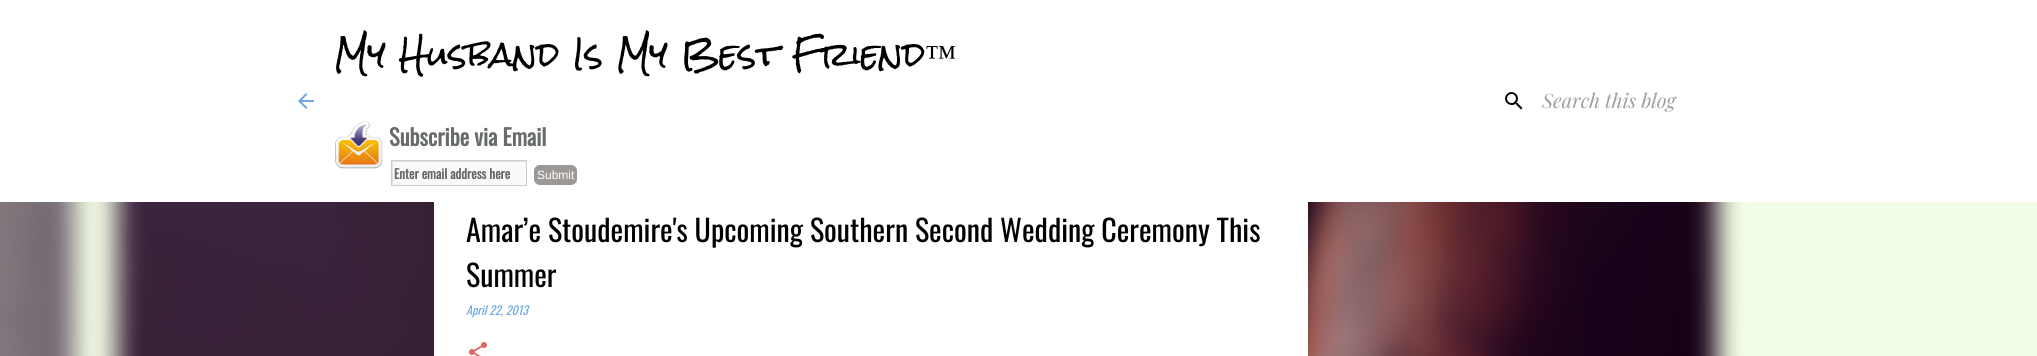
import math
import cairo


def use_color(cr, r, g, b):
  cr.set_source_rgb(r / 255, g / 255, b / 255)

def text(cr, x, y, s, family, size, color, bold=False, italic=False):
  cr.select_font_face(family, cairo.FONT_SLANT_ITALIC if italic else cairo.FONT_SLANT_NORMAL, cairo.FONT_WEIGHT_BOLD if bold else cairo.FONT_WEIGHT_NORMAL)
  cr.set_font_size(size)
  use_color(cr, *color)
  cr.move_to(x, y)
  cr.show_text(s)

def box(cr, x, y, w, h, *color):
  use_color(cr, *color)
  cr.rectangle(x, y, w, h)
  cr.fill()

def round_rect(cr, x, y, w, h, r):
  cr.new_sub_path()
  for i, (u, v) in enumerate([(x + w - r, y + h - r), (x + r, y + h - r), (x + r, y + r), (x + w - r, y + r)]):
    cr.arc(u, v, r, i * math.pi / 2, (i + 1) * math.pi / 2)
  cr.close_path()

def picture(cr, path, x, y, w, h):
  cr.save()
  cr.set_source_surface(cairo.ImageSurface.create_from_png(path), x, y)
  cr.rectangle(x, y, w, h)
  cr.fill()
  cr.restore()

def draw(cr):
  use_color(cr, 255, 255, 255)
  cr.paint()
  picture(cr, "img_01.png", 298, 93, 16, 16)
  picture(cr, "img_02.png", 335, 121, 48, 48)
  box(cr, 393, 162, 133, 23, 249, 249, 249)
  cr.save()
  cr.rectangle(392, 161, 134, 24)
  cr.clip()
  use_color(cr, 224, 224, 224)
  cr.set_fill_rule(cairo.FILL_RULE_EVEN_ODD)
  cr.new_path()
  cr.move_to(293, 62)
  cr.line_to(625, 62)
  cr.line_to(625, 284)
  cr.line_to(293, 284)
  cr.close_path()
  cr.move_to(393, 162)
  cr.line_to(527, 162)
  cr.line_to(527, 186)
  cr.line_to(393, 186)
  cr.close_path()
  cr.fill()
  cr.restore()
  cr.rectangle(391.5, 160.5, 135, 25)
  use_color(cr, 204, 204, 204)
  cr.set_line_width(1)
  cr.stroke()
  use_color(cr, 155, 152, 149)
  round_rect(cr, 534, 165, 43, 20, 6)
  cr.fill()
  picture(cr, "img_03.png", 1505, 92, 18, 18)
  picture(cr, "img_05.png", 0, 202, 2037, 154)
  box(cr, 434, 202, 874, 154, 255, 255, 255)
  picture(cr, "img_04.png", 469, 342, 18, 14)
  text(cr, 334, 67, "My Husband Is My Best Friend", "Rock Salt", 32, (0, 0, 0))
  text(cr, 925, 67, "™", "Liberation Serif", 32, (0, 0, 0))
  text(cr, 389, 146, "Subscribe via Email", "Oswald", 22.5, (104, 107, 108), bold=True)
  text(cr, 394, 179, "Enter email address here", "Oswald", 13, (102, 102, 102), bold=True)
  text(cr, 537, 179, "Submit", "Liberation Sans", 12, (255, 255, 255))
  text(cr, 1542, 108, "Search this blog", "Playfair Display", 20, (158, 158, 158), italic=True)
  text(cr, 466, 242, "Amar’e Stoudemire's Upcoming Southern Second Wedding Ceremony This", "Oswald", 30, (0, 0, 0))
  text(cr, 466, 287, "Summer", "Oswald", 30, (0, 0, 0))
  text(cr, 466, 315, "April 22, 2013", "Oswald", 12, (111, 168, 220), italic=True)


surface = cairo.ImageSurface(cairo.FORMAT_RGB24, 2037, 356)
cr = cairo.Context(surface)
options = cairo.FontOptions()
options.set_hint_metrics(cairo.HINT_METRICS_OFF)
options.set_hint_style(cairo.HINT_STYLE_NONE)
cr.set_font_options(options)
cr.set_miter_limit(4)
draw(cr)
surface.write_to_png("out.png")
